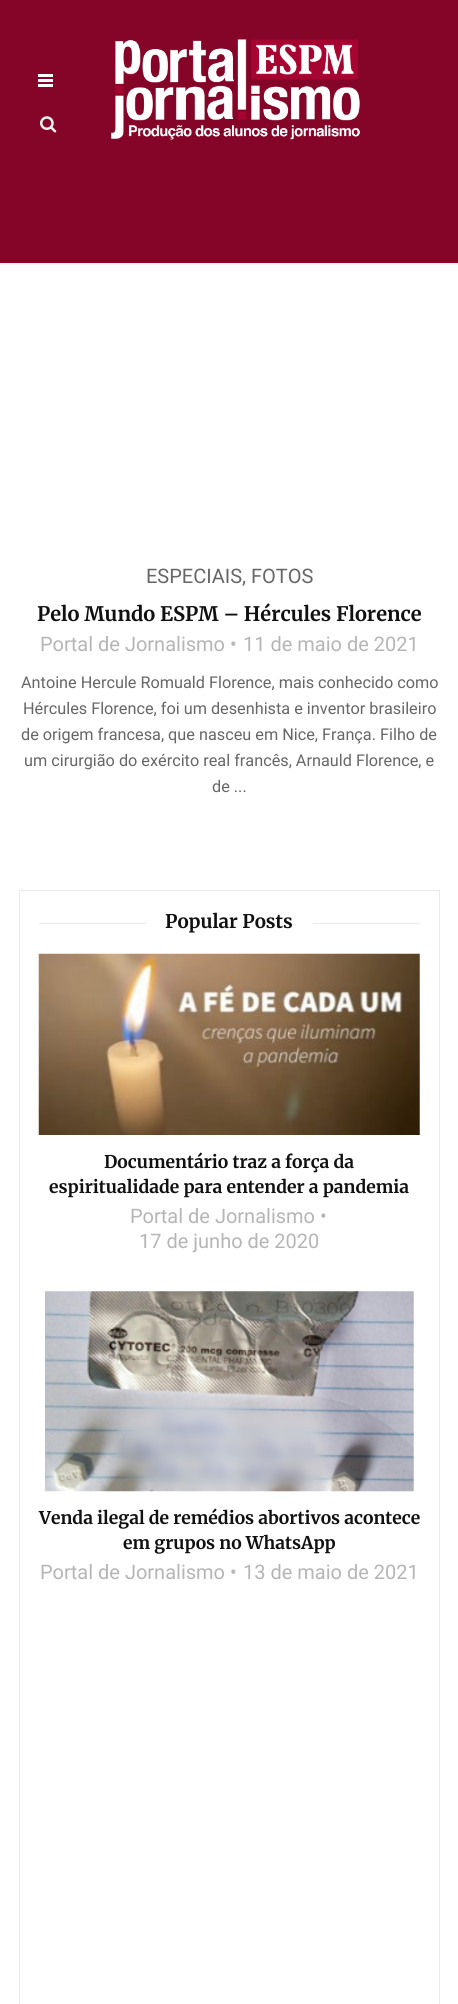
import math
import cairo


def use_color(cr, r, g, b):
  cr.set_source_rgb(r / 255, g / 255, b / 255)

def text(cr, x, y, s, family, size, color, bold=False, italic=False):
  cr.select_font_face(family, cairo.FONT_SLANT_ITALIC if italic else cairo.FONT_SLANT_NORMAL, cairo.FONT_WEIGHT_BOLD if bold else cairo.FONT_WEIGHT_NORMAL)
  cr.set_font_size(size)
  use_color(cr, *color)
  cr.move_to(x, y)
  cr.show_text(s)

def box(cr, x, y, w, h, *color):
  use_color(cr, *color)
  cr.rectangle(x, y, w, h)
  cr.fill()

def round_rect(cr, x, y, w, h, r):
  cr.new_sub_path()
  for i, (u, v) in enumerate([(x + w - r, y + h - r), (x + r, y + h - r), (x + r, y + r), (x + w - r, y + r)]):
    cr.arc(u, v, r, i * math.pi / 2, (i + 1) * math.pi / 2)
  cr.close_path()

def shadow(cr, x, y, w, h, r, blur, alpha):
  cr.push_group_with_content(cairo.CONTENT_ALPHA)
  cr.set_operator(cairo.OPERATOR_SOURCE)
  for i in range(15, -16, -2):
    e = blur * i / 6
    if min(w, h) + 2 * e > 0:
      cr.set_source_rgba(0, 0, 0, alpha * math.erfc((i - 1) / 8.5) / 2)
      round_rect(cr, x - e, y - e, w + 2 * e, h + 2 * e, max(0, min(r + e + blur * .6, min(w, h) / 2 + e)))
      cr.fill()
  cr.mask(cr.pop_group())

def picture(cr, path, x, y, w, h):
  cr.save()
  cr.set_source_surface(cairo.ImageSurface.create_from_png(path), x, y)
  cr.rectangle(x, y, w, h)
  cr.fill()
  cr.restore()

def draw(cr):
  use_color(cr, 255, 255, 255)
  cr.paint()
  box(cr, 0, 263, 458, 1, 234, 234, 234)
  use_color(cr, 234, 234, 234)
  shadow(cr, 0, 1, 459, 263, 0, 1, 1)
  box(cr, 0, 0, 458, 263, 132, 5, 39)
  box(cr, 38, 74, 15, 3, 255, 255, 255)
  box(cr, 38, 79, 15, 3, 255, 255, 255)
  box(cr, 38, 84, 15, 3, 255, 255, 255)
  picture(cr, "img_01.png", 111, 39, 249, 101)
  picture(cr, "img_02.png", 40, 116, 17, 17)
  cr.rectangle(19.5, 890.5, 420, 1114)
  use_color(cr, 234, 234, 234)
  cr.set_line_width(1)
  cr.stroke()
  box(cr, 39, 923, 107, 1, 234, 234, 234)
  box(cr, 313, 923, 107, 1, 234, 234, 234)
  picture(cr, "img_03.png", 38, 953, 382, 182)
  picture(cr, "img_04.png", 45, 1291, 369, 201)
  text(cr, 146, 583, "ESPECIAIS, FOTOS", "Roboto", 20, (102, 102, 102))
  text(cr, 37, 621, "Pelo Mundo ESPM – Hércules Florence", "Merriweather Light", 20, (17, 17, 17))
  text(cr, 40, 651, "Portal de Jornalismo •", "Roboto", 20, (181, 181, 181))
  text(cr, 243, 651, "11 de maio de 2021", "Roboto", 20, (181, 181, 181))
  text(cr, 21, 688, "Antoine Hercule Romuald Florence, mais conhecido como", "Roboto", 16.25, (102, 102, 102))
  text(cr, 23, 714, "Hércules Florence, foi um desenhista e inventor brasileiro", "Roboto", 16.25, (102, 102, 102))
  text(cr, 21, 740, "de origem francesa, que nasceu em Nice, França. Filho de", "Roboto", 16.25, (102, 102, 102))
  text(cr, 24, 766, "um cirurgião do exército real francês, Arnauld Florence, e", "Roboto", 16.25, (102, 102, 102))
  text(cr, 212, 792, "de ...", "Roboto", 16.25, (102, 102, 102))
  text(cr, 165, 928, "Popular Posts", "Merriweather Light", 18.75, (17, 17, 17))
  text(cr, 104, 1168, "Documentário traz a força da", "Merriweather Light", 17.5, (17, 17, 17))
  text(cr, 49, 1193, "espiritualidade para entender a pandemia", "Merriweather Light", 17.5, (17, 17, 17))
  text(cr, 130, 1223, "Portal de Jornalismo •", "Roboto", 20, (181, 181, 181))
  text(cr, 139, 1248, "17 de junho de 2020", "Roboto", 20, (181, 181, 181))
  text(cr, 39, 1524, "Venda ilegal de remédios abortivos acontece", "Merriweather Light", 17.5, (17, 17, 17))
  text(cr, 123, 1549, "em grupos no WhatsApp", "Merriweather Light", 17.5, (17, 17, 17))
  text(cr, 40, 1579, "Portal de Jornalismo •", "Roboto", 20, (181, 181, 181))
  text(cr, 243, 1579, "13 de maio de 2021", "Roboto", 20, (181, 181, 181))


surface = cairo.ImageSurface(cairo.FORMAT_RGB24, 458, 2004)
cr = cairo.Context(surface)
options = cairo.FontOptions()
options.set_hint_metrics(cairo.HINT_METRICS_OFF)
options.set_hint_style(cairo.HINT_STYLE_NONE)
cr.set_font_options(options)
cr.set_miter_limit(4)
draw(cr)
surface.write_to_png("out.png")
